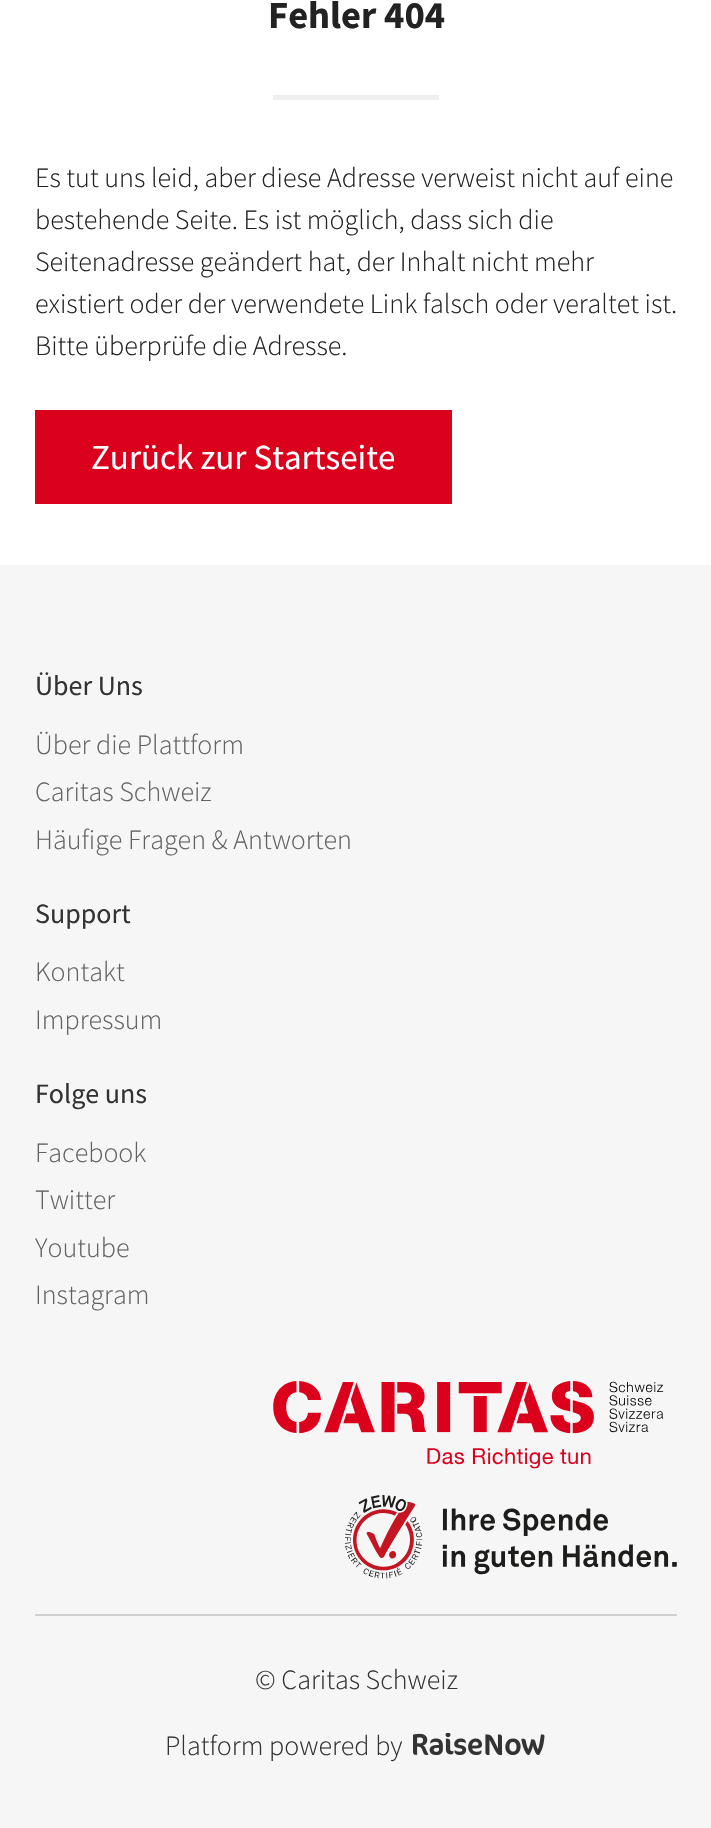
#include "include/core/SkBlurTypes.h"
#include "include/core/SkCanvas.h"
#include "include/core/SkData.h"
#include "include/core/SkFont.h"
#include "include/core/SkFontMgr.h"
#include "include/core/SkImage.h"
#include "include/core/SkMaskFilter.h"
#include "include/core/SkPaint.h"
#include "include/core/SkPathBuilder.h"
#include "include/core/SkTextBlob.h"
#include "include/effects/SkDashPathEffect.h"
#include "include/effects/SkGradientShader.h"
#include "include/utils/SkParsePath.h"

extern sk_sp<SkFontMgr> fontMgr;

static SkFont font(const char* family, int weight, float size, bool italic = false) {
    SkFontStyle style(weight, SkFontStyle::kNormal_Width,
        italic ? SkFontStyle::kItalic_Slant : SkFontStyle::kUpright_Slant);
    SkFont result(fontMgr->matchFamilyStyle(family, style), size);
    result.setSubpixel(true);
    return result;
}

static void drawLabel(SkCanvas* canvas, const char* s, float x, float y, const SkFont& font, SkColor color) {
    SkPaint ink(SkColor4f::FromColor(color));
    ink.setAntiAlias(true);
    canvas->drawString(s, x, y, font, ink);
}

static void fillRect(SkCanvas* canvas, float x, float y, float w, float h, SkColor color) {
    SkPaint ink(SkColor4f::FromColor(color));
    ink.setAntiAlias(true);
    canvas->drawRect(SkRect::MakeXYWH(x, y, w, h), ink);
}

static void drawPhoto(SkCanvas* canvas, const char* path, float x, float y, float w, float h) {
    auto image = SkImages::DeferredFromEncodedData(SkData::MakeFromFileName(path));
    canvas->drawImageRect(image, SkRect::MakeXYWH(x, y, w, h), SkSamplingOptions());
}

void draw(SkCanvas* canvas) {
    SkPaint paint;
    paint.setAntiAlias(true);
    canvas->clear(0xFFFFFFFF);
    SkFont font1 = font("Source Sans Pro", 700, 38.5f);
    drawLabel(canvas, "Fehler 404", 268, 28, font1, 0xFF222222);
    fillRect(canvas, 273, 95, 166, 5, 0xFFEEEEEE);
    SkFont font2 = font("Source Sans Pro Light", 300, 28);
    drawLabel(canvas, "Es tut uns leid, aber diese Adresse verweist nicht auf eine", 35, 187, font2, 0xFF222222);
    drawLabel(canvas, "bestehende Seite. Es ist möglich, dass sich die", 35, 229, font2, 0xFF222222);
    drawLabel(canvas, "Seitenadresse geändert hat, der Inhalt nicht mehr", 35, 271, font2, 0xFF222222);
    drawLabel(canvas, "existiert oder der verwendete Link falsch oder veraltet ist.", 35, 313, font2, 0xFF222222);
    drawLabel(canvas, "Bitte überprüfe die Adresse.", 35, 355, font2, 0xFF222222);
    fillRect(canvas, 35, 410, 417, 94, 0xFFDB001B);
    SkFont font3 = font("Source Sans Pro", 400, 35);
    drawLabel(canvas, "Zurück zur Startseite", 91, 469, font3, 0xFFFFFFFF);
    fillRect(canvas, 0, 565, 711, 1263, 0xFFF6F6F6);
    SkFont font4 = font("Source Sans Pro", 400, 28);
    drawLabel(canvas, "Über Uns", 35, 695, font4, 0xFF333333);
    drawLabel(canvas, "Über die Plattform", 35, 754, font2, 0xFF626262);
    drawLabel(canvas, "Caritas Schweiz", 35, 801, font2, 0xFF626262);
    drawLabel(canvas, "Häufige Fragen & Antworten", 35, 849, font2, 0xFF626262);
    drawLabel(canvas, "Support", 35, 923, font4, 0xFF333333);
    drawLabel(canvas, "Kontakt", 35, 981, font2, 0xFF626262);
    drawLabel(canvas, "Impressum", 35, 1029, font2, 0xFF626262);
    drawLabel(canvas, "Folge uns", 35, 1103, font4, 0xFF333333);
    drawLabel(canvas, "Facebook", 35, 1162, font2, 0xFF626262);
    drawLabel(canvas, "Twitter", 35, 1209, font2, 0xFF626262);
    drawLabel(canvas, "Youtube", 35, 1257, font2, 0xFF626262);
    drawLabel(canvas, "Instagram", 35, 1304, font2, 0xFF626262);
    drawPhoto(canvas, "assets/img1.png", 273, 1381, 391, 88);
    drawPhoto(canvas, "assets/img2.png", 345, 1495, 332, 84);
    fillRect(canvas, 35, 1614, 642, 2, 0xFFCFCFCF);
    drawLabel(canvas, "© Caritas Schweiz", 255, 1689, font2, 0xFF333333);
    drawLabel(canvas, "Platform powered by", 165, 1755, font2, 0xFF333333);
    drawPhoto(canvas, "assets/img3.png", 413, 1733, 132, 22);
}
